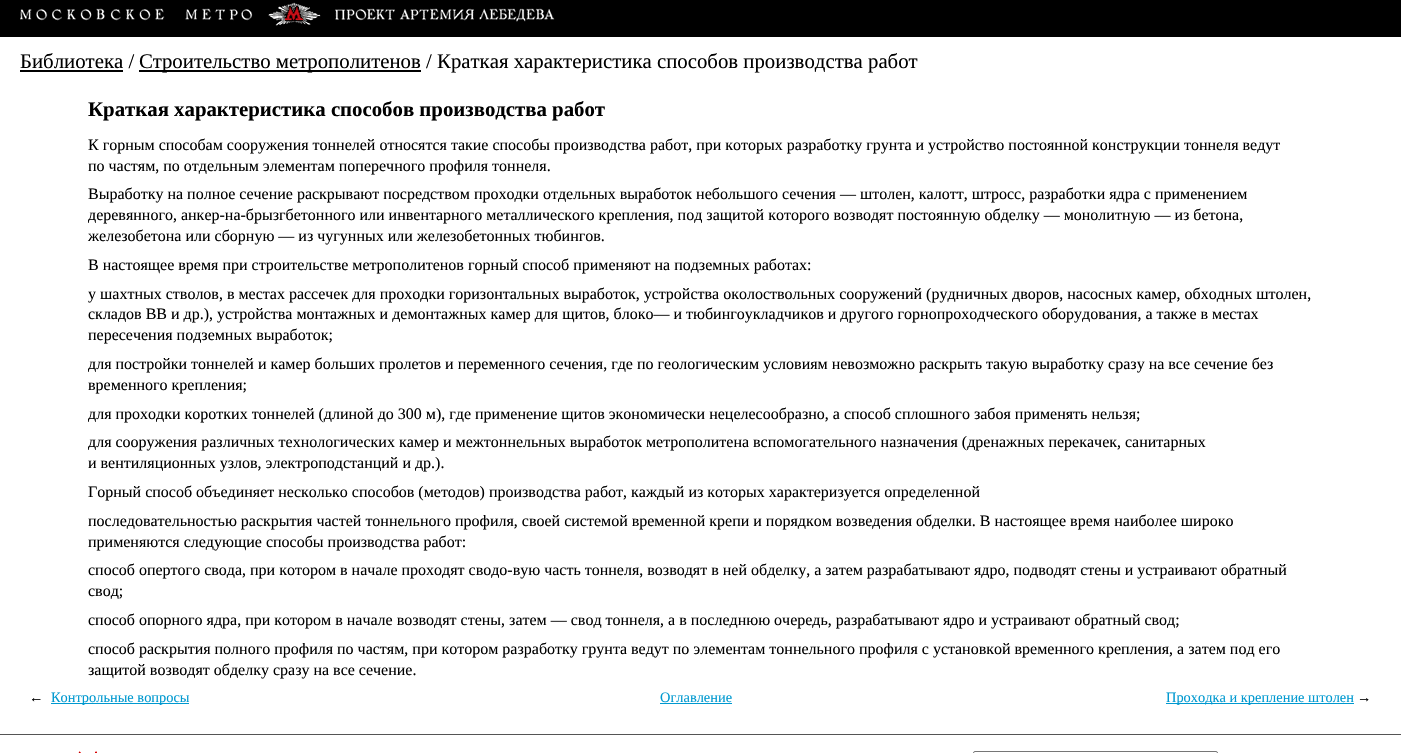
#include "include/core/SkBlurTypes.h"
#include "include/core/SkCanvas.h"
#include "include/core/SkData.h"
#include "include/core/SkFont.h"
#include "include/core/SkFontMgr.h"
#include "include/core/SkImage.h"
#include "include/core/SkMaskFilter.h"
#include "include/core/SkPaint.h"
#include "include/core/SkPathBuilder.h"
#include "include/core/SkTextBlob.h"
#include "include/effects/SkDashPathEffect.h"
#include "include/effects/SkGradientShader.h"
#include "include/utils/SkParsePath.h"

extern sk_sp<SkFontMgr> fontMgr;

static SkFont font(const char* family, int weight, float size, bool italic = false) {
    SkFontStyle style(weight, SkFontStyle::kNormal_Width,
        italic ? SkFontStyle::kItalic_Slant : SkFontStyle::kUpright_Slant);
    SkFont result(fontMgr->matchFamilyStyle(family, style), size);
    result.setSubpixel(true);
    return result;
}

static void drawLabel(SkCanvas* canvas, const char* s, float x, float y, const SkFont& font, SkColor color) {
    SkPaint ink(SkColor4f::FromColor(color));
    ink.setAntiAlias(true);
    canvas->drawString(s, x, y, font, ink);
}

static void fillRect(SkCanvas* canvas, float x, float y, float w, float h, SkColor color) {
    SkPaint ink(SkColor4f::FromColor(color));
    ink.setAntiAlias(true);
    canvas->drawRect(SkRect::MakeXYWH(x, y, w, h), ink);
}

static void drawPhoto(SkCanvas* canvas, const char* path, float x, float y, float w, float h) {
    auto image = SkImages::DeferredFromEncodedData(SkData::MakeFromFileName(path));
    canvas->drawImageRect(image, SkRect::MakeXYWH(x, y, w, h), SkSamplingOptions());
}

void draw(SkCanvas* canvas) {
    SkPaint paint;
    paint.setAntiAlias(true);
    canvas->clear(0xFFFFFFFF);
    fillRect(canvas, 0, 0, 1401, 37, 0xFF000000);
    drawPhoto(canvas, "assets/img1.png", 20, 2, 535, 24);
    SkFont font1 = font("Liberation Serif", 400, 20.8f);
    drawLabel(canvas, "Библиотека /", 20, 68, font1, 0xFF000000);
    fillRect(canvas, 20, 70, 103, 2, 0xFF000000);
    fillRect(canvas, 139, 70, 282, 2, 0xFF000000);
    drawLabel(canvas, "Строительство метрополитенов / Краткая характеристика способов производства работ", 139, 68, font1, 0xFF000000);
    SkFont font2 = font("Liberation Serif", 700, 20.8f);
    drawLabel(canvas, "Краткая характеристика способов производства работ", 88, 116, font2, 0xFF000000);
    SkFont font3 = font("Liberation Serif", 400, 16);
    drawLabel(canvas, "К горным способам сооружения тоннелей относятся такие способы производства работ, при которых разработку грунта и устройство постоянной конструкции тоннеля ведут", 88, 150, font3, 0xFF000000);
    drawLabel(canvas, "по частям, по отдельным элементам поперечного профиля тоннеля.", 88, 171, font3, 0xFF000000);
    drawLabel(canvas, "Выработку на полное сечение раскрывают посредством проходки отдельных выработок небольшого сечения — штолен, калотт, штросс, разработки ядра с применением", 88, 199, font3, 0xFF000000);
    drawLabel(canvas, "деревянного, анкер-на-брызгбетонного или инвентарного металлического крепления, под защитой которого возводят постоянную обделку — монолитную — из бетона,", 88, 220, font3, 0xFF000000);
    drawLabel(canvas, "железобетона или сборную — из чугунных или железобетонных тюбингов.", 88, 241, font3, 0xFF000000);
    drawLabel(canvas, "В настоящее время при строительстве метрополитенов горный способ применяют на подземных работах:", 88, 270, font3, 0xFF000000);
    drawLabel(canvas, "у шахтных стволов, в местах рассечек для проходки горизонтальных выработок, устройства околоствольных сооружений (рудничных дворов, насосных камер, обходных штолен,", 88, 299, font3, 0xFF000000);
    drawLabel(canvas, "складов ВВ и др.), устройства монтажных и демонтажных камер для щитов, блоко— и тюбингоукладчиков и другого горнопроходческого оборудования, а также в местах", 88, 319, font3, 0xFF000000);
    drawLabel(canvas, "пересечения подземных выработок;", 88, 340, font3, 0xFF000000);
    drawLabel(canvas, "для постройки тоннелей и камер больших пролетов и переменного сечения, где по геологическим условиям невозможно раскрыть такую выработку сразу на все сечение без", 88, 369, font3, 0xFF000000);
    drawLabel(canvas, "временного крепления;", 88, 390, font3, 0xFF000000);
    drawLabel(canvas, "для проходки коротких тоннелей (длиной до 300 м), где применение щитов экономически нецелесообразно, а способ сплошного забоя применять нельзя;", 88, 419, font3, 0xFF000000);
    drawLabel(canvas, "для сооружения различных технологических камер и межтоннельных выработок метрополитена вспомогательного назначения (дренажных перекачек, санитарных", 88, 447, font3, 0xFF000000);
    drawLabel(canvas, "и вентиляционных узлов, электроподстанций и др.).", 88, 468, font3, 0xFF000000);
    drawLabel(canvas, "Горный способ объединяет несколько способов (методов) производства работ, каждый из которых характеризуется определенной", 88, 497, font3, 0xFF000000);
    drawLabel(canvas, "последовательностью раскрытия частей тоннельного профиля, своей системой временной крепи и порядком возведения обделки. В настоящее время наиболее широко", 88, 526, font3, 0xFF000000);
    drawLabel(canvas, "применяются следующие способы производства работ:", 88, 547, font3, 0xFF000000);
    drawLabel(canvas, "способ опертого свода, при котором в начале проходят сводо-вую часть тоннеля, возводят в ней обделку, а затем разрабатывают ядро, подводят стены и устраивают обратный", 88, 575, font3, 0xFF000000);
    drawLabel(canvas, "свод;", 88, 596, font3, 0xFF000000);
    drawLabel(canvas, "способ опорного ядра, при котором в начале возводят стены, затем — свод тоннеля, а в последнюю очередь, разрабатывают ядро и устраивают обратный свод;", 88, 625, font3, 0xFF000000);
    drawLabel(canvas, "способ раскрытия полного профиля по частям, при котором разработку грунта ведут по элементам тоннельного профиля с установкой временного крепления, а затем под его", 88, 654, font3, 0xFF000000);
    drawLabel(canvas, "защитой возводят обделку сразу на все сечение.", 88, 675, font3, 0xFF000000);
    SkFont font4 = font("Liberation Serif", 400, 14.4f);
    drawLabel(canvas, "←", 29, 702, font4, 0xFF000000);
    fillRect(canvas, 51, 703, 138, 1, 0xFF0099D0);
    drawLabel(canvas, "Контрольные вопросы", 51, 702, font4, 0xFF0099D0);
    drawLabel(canvas, "Оглавление", 660, 702, font4, 0xFF0099D0);
    fillRect(canvas, 660, 703, 72, 1, 0xFF0099D0);
    fillRect(canvas, 1166, 703, 188, 1, 0xFF0099D0);
    drawLabel(canvas, "Проходка и крепление штолен", 1166, 702, font4, 0xFF0099D0);
    drawLabel(canvas, "→", 1357, 702, font4, 0xFF000000);
    fillRect(canvas, 0, 734, 1401, 1, 0xFF555555);
    drawPhoto(canvas, "assets/img2.png", 78, 751, 19, 2);
    paint.setStroke(true);
    paint.setStrokeWidth(1);
    paint.setColor(0xFF767676);
    canvas->drawRoundRect(SkRect::MakeXYWH(973.5f, 751.5f, 244, 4), 1.5f, 1.5f, paint);
}
